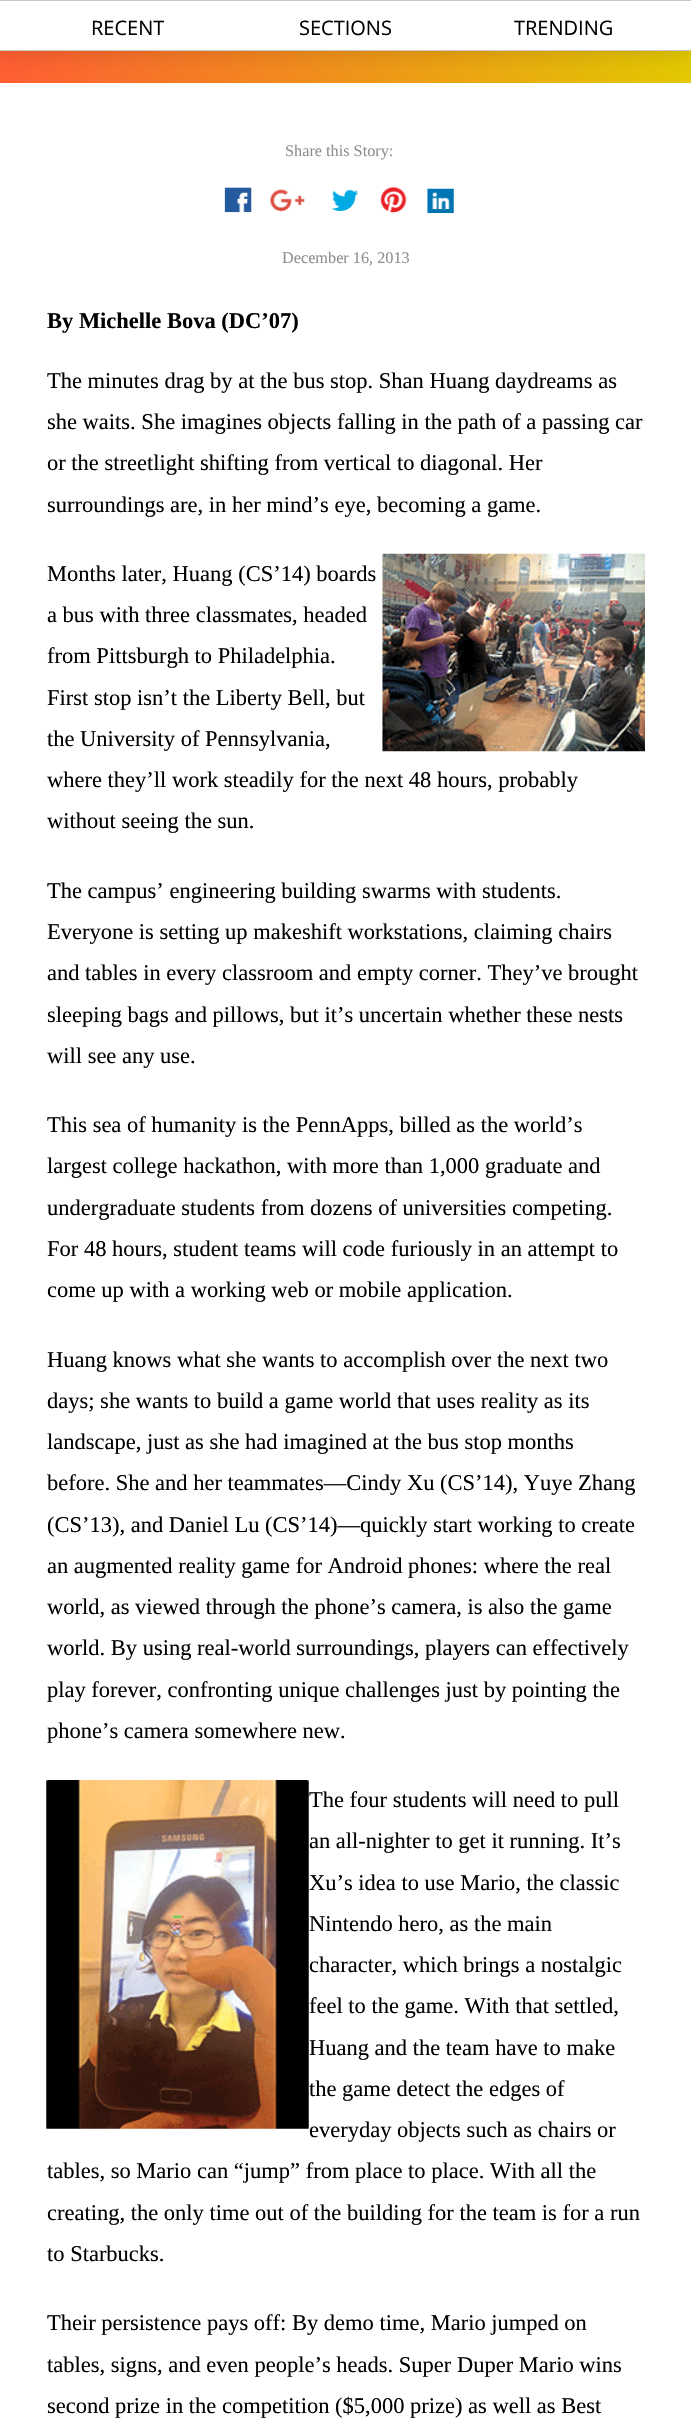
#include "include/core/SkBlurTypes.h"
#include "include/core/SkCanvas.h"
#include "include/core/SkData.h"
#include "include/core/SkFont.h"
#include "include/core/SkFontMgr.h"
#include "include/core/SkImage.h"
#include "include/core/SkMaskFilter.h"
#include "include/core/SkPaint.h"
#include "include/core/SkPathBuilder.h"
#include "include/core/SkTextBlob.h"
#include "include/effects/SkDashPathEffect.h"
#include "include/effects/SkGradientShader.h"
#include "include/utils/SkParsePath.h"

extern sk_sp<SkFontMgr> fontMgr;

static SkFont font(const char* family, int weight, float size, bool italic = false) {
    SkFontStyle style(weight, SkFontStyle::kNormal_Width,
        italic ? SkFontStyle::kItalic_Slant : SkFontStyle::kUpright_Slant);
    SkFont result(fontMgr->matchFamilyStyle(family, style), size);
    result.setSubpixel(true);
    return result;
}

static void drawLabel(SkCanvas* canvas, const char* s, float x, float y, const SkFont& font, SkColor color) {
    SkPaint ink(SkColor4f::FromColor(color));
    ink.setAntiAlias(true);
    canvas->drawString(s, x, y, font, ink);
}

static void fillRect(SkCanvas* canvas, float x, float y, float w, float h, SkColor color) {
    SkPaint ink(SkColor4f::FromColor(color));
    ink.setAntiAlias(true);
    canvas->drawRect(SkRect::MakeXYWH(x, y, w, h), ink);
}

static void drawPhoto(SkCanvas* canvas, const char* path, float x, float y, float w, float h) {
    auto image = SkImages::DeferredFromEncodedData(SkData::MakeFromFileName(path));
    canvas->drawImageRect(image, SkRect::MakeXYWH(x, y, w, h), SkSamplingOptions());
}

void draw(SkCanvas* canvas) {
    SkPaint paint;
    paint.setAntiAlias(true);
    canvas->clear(0xFFFFFFFF);
    {
        const SkColor colors[] = {0xFFFF5B34, 0xFFE2CC00};
        const float stops[] = {0, 1};
        const SkPoint ends[] = {{-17, -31}, {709, -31}};
        paint.setShader(SkGradientShader::MakeLinear(ends, colors, stops, 2, SkTileMode::kClamp));
        paint.setAlpha(255);
    }
    canvas->drawRect(SkRect::MakeXYWH(0, 51, 691, 32), paint);
    paint.setShader(nullptr);
    paint.setColor(0x21000000);
    paint.setMaskFilter(SkMaskFilter::MakeBlur(kNormal_SkBlurStyle, 10.5f));
    canvas->drawRect(SkRect::MakeXYWH(0, 3, 691, 51), paint);
    paint.setMaskFilter(nullptr);
    fillRect(canvas, 0, 0, 691, 1, 0xFFC9C8C7);
    fillRect(canvas, 0, 50, 691, 1, 0xFFC9C8C7);
    fillRect(canvas, 0, 1, 691, 49, 0xFFFFFFFF);
    SkFont font1 = font("Open Sans", 400, 20);
    drawLabel(canvas, "RECENT", 91, 35, font1, 0xFF000000);
    drawLabel(canvas, "SECTIONS", 299, 35, font1, 0xFF000000);
    drawLabel(canvas, "TRENDING", 514, 35, font1, 0xFF000000);
    SkFont font2 = font("Liberation Serif", 400, 16.25f);
    drawLabel(canvas, "Share this Story:", 285, 156, font2, 0xFF8E8F90);
    drawPhoto(canvas, "assets/img1.png", 224, 187, 28, 26);
    drawPhoto(canvas, "assets/img2.png", 270, 189, 35, 23);
    drawPhoto(canvas, "assets/img3.png", 331, 189, 28, 22);
    drawPhoto(canvas, "assets/img4.png", 380, 186, 27, 27);
    drawPhoto(canvas, "assets/img5.png", 427, 188, 27, 26);
    drawLabel(canvas, "December 16, 2013", 282, 263, font2, 0xFF8E8F90);
    SkFont font3 = font("Liberation Serif", 700, 22.5f);
    drawLabel(canvas, "By Michelle Bova (DC’07)", 47, 328, font3, 0xFF000000);
    SkFont font4 = font("Liberation Serif", 400, 22.5f);
    drawLabel(canvas, "The minutes drag by at the bus stop. Shan Huang daydreams as", 47, 388, font4, 0xFF000000);
    drawLabel(canvas, "she waits. She imagines objects falling in the path of a passing car", 47, 429, font4, 0xFF000000);
    drawLabel(canvas, "or the streetlight shifting from vertical to diagonal. Her", 47, 470, font4, 0xFF000000);
    drawLabel(canvas, "surroundings are, in her mind’s eye, becoming a game.", 47, 512, font4, 0xFF000000);
    drawLabel(canvas, "Months later, Huang (CS’14) boards", 47, 581, font4, 0xFF000000);
    drawPhoto(canvas, "assets/img6.png", 382, 553, 263, 199);
    drawLabel(canvas, "a bus with three classmates, headed", 47, 622, font4, 0xFF000000);
    drawLabel(canvas, "from Pittsburgh to Philadelphia.", 47, 663, font4, 0xFF000000);
    drawLabel(canvas, "First stop isn’t the Liberty Bell, but", 47, 705, font4, 0xFF000000);
    drawLabel(canvas, "the University of Pennsylvania,", 47, 746, font4, 0xFF000000);
    drawLabel(canvas, "where they’ll work steadily for the next 48 hours, probably", 47, 787, font4, 0xFF000000);
    drawLabel(canvas, "without seeing the sun.", 47, 828, font4, 0xFF000000);
    drawLabel(canvas, "The campus’ engineering building swarms with students.", 47, 898, font4, 0xFF000000);
    drawLabel(canvas, "Everyone is setting up makeshift workstations, claiming chairs", 47, 939, font4, 0xFF000000);
    drawLabel(canvas, "and tables in every classroom and empty corner. They’ve brought", 47, 980, font4, 0xFF000000);
    drawLabel(canvas, "sleeping bags and pillows, but it’s uncertain whether these nests", 47, 1022, font4, 0xFF000000);
    drawLabel(canvas, "will see any use.", 47, 1063, font4, 0xFF000000);
    drawLabel(canvas, "This sea of humanity is the PennApps, billed as the world’s", 47, 1132, font4, 0xFF000000);
    drawLabel(canvas, "largest college hackathon, with more than 1,000 graduate and", 47, 1173, font4, 0xFF000000);
    drawLabel(canvas, "undergraduate students from dozens of universities competing.", 47, 1215, font4, 0xFF000000);
    drawLabel(canvas, "For 48 hours, student teams will code furiously in an attempt to", 47, 1256, font4, 0xFF000000);
    drawLabel(canvas, "come up with a working web or mobile application.", 47, 1297, font4, 0xFF000000);
    drawLabel(canvas, "Huang knows what she wants to accomplish over the next two", 47, 1367, font4, 0xFF000000);
    drawLabel(canvas, "days; she wants to build a game world that uses reality as its", 47, 1408, font4, 0xFF000000);
    drawLabel(canvas, "landscape, just as she had imagined at the bus stop months", 47, 1449, font4, 0xFF000000);
    drawLabel(canvas, "before. She and her teammates—Cindy Xu (CS’14), Yuye Zhang", 47, 1490, font4, 0xFF000000);
    drawLabel(canvas, "(CS’13), and Daniel Lu (CS’14)—quickly start working to create", 47, 1532, font4, 0xFF000000);
    drawLabel(canvas, "an augmented reality game for Android phones: where the real", 47, 1573, font4, 0xFF000000);
    drawLabel(canvas, "world, as viewed through the phone’s camera, is also the game", 47, 1614, font4, 0xFF000000);
    drawLabel(canvas, "world. By using real-world surroundings, players can effectively", 47, 1655, font4, 0xFF000000);
    drawLabel(canvas, "play forever, confronting unique challenges just by pointing the", 47, 1697, font4, 0xFF000000);
    drawLabel(canvas, "phone’s camera somewhere new.", 47, 1738, font4, 0xFF000000);
    drawPhoto(canvas, "assets/img7.png", 46, 1780, 263, 349);
    drawLabel(canvas, "The four students will need to pull", 309, 1807, font4, 0xFF000000);
    drawLabel(canvas, "an all-nighter to get it running. It’s", 309, 1848, font4, 0xFF000000);
    drawLabel(canvas, "Xu’s idea to use Mario, the classic", 309, 1890, font4, 0xFF000000);
    drawLabel(canvas, "Nintendo hero, as the main", 309, 1931, font4, 0xFF000000);
    drawLabel(canvas, "character, which brings a nostalgic", 309, 1972, font4, 0xFF000000);
    drawLabel(canvas, "feel to the game. With that settled,", 309, 2013, font4, 0xFF000000);
    drawLabel(canvas, "Huang and the team have to make", 309, 2055, font4, 0xFF000000);
    drawLabel(canvas, "the game detect the edges of", 309, 2096, font4, 0xFF000000);
    drawLabel(canvas, "everyday objects such as chairs or", 309, 2137, font4, 0xFF000000);
    drawLabel(canvas, "tables, so Mario can “jump” from place to place. With all the", 47, 2178, font4, 0xFF000000);
    drawLabel(canvas, "creating, the only time out of the building for the team is for a run", 47, 2220, font4, 0xFF000000);
    drawLabel(canvas, "to Starbucks.", 47, 2261, font4, 0xFF000000);
    drawLabel(canvas, "Their persistence pays off: By demo time, Mario jumped on", 47, 2330, font4, 0xFF000000);
    drawLabel(canvas, "tables, signs, and even people’s heads. Super Duper Mario wins", 47, 2372, font4, 0xFF000000);
    drawLabel(canvas, "second prize in the competition ($5,000 prize) as well as Best", 47, 2413, font4, 0xFF000000);
}
